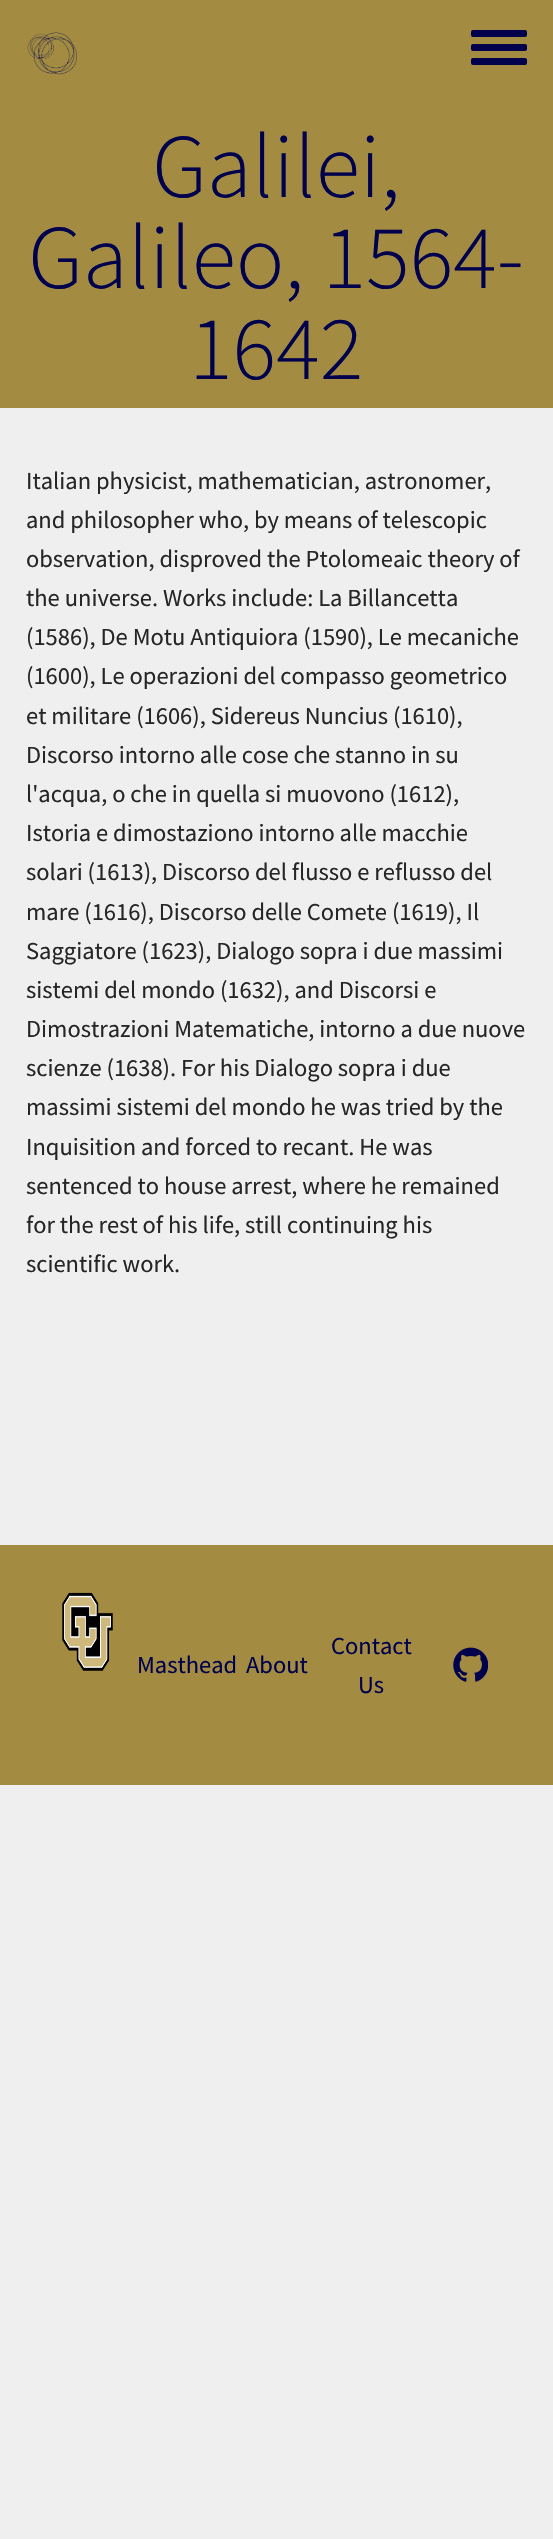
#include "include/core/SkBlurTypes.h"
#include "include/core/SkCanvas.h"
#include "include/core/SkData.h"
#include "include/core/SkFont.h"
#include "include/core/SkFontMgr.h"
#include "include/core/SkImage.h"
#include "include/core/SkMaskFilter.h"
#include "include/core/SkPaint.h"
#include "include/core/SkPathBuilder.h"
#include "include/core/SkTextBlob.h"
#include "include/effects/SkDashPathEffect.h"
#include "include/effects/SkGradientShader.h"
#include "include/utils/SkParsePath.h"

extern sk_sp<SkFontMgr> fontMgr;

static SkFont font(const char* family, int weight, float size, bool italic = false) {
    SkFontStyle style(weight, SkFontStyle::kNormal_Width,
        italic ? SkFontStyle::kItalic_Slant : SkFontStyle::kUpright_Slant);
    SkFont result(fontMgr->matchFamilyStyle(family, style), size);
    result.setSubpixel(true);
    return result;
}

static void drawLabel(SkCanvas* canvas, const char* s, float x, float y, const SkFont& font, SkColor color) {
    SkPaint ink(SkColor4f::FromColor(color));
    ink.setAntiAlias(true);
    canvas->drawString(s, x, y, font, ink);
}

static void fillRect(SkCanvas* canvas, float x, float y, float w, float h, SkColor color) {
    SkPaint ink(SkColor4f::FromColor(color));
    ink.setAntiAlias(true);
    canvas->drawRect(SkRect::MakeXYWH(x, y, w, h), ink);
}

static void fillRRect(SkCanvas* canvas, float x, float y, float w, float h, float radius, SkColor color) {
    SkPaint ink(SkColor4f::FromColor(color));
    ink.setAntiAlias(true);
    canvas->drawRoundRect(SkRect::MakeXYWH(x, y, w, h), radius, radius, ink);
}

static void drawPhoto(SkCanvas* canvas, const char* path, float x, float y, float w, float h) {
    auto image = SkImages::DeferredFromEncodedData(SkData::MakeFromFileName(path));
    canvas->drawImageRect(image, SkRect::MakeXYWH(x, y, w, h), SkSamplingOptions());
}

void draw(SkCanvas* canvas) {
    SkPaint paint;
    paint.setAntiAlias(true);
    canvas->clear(0xFFEFEFEF);
    fillRect(canvas, 0, 0, 553, 408, 0xFFA38C42);
    drawPhoto(canvas, "assets/img1.png", 27, 32, 50, 43);
    fillRRect(canvas, 471, 44, 56, 7, 2, 0xFF00004D);
    fillRRect(canvas, 471, 30, 56, 7, 2, 0xFF00004D);
    fillRRect(canvas, 471, 58, 56, 7, 2, 0xFF00004D);
    SkFont font1 = font("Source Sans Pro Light", 300, 91);
    drawLabel(canvas, "Galilei,", 152, 197, font1, 0xFF00004D);
    drawLabel(canvas, "Galileo, 1564-", 28, 288, font1, 0xFF00004D);
    drawLabel(canvas, "1642", 189, 379, font1, 0xFF00004D);
    SkFont font2 = font("Source Sans Pro", 400, 24.5f);
    drawLabel(canvas, "Italian physicist, mathematician, astronomer,", 26, 489, font2, 0xFF262626);
    drawLabel(canvas, "and philosopher who, by means of telescopic", 26, 528, font2, 0xFF262626);
    drawLabel(canvas, "observation, disproved the Ptolomeaic theory of", 26, 567, font2, 0xFF262626);
    drawLabel(canvas, "the universe. Works include: La Billancetta", 26, 606, font2, 0xFF262626);
    drawLabel(canvas, "(1586), De Motu Antiquiora (1590), Le mecaniche", 26, 645, font2, 0xFF262626);
    drawLabel(canvas, "(1600), Le operazioni del compasso geometrico", 26, 684, font2, 0xFF262626);
    drawLabel(canvas, "et militare (1606), Sidereus Nuncius (1610),", 26, 724, font2, 0xFF262626);
    drawLabel(canvas, "Discorso intorno alle cose che stanno in su", 26, 763, font2, 0xFF262626);
    drawLabel(canvas, "l'acqua, o che in quella si muovono (1612),", 26, 802, font2, 0xFF262626);
    drawLabel(canvas, "Istoria e dimostaziono intorno alle macchie", 26, 841, font2, 0xFF262626);
    drawLabel(canvas, "solari (1613), Discorso del flusso e reflusso del", 26, 880, font2, 0xFF262626);
    drawLabel(canvas, "mare (1616), Discorso delle Comete (1619), Il", 26, 920, font2, 0xFF262626);
    drawLabel(canvas, "Saggiatore (1623), Dialogo sopra i due massimi", 26, 959, font2, 0xFF262626);
    drawLabel(canvas, "sistemi del mondo (1632), and Discorsi e", 26, 998, font2, 0xFF262626);
    drawLabel(canvas, "Dimostrazioni Matematiche, intorno a due nuove", 26, 1037, font2, 0xFF262626);
    drawLabel(canvas, "scienze (1638). For his Dialogo sopra i due", 26, 1076, font2, 0xFF262626);
    drawLabel(canvas, "massimi sistemi del mondo he was tried by the", 26, 1115, font2, 0xFF262626);
    drawLabel(canvas, "Inquisition and forced to recant. He was", 26, 1155, font2, 0xFF262626);
    drawLabel(canvas, "sentenced to house arrest, where he remained", 26, 1194, font2, 0xFF262626);
    drawLabel(canvas, "for the rest of his life, still continuing his", 26, 1233, font2, 0xFF262626);
    drawLabel(canvas, "scientific work.", 26, 1272, font2, 0xFF262626);
    fillRect(canvas, 0, 1545, 553, 240, 0xFFA38C42);
    drawPhoto(canvas, "assets/img2.png", 62, 1592, 51, 79);
    drawLabel(canvas, "Masthead", 137, 1673, font2, 0xFF00004D);
    drawLabel(canvas, "About", 246, 1673, font2, 0xFF00004D);
    drawLabel(canvas, "Contact", 331, 1654, font2, 0xFF00004D);
    drawLabel(canvas, "Us", 358, 1693, font2, 0xFF00004D);
    drawPhoto(canvas, "assets/img3.png", 453, 1647, 35, 35);
}
